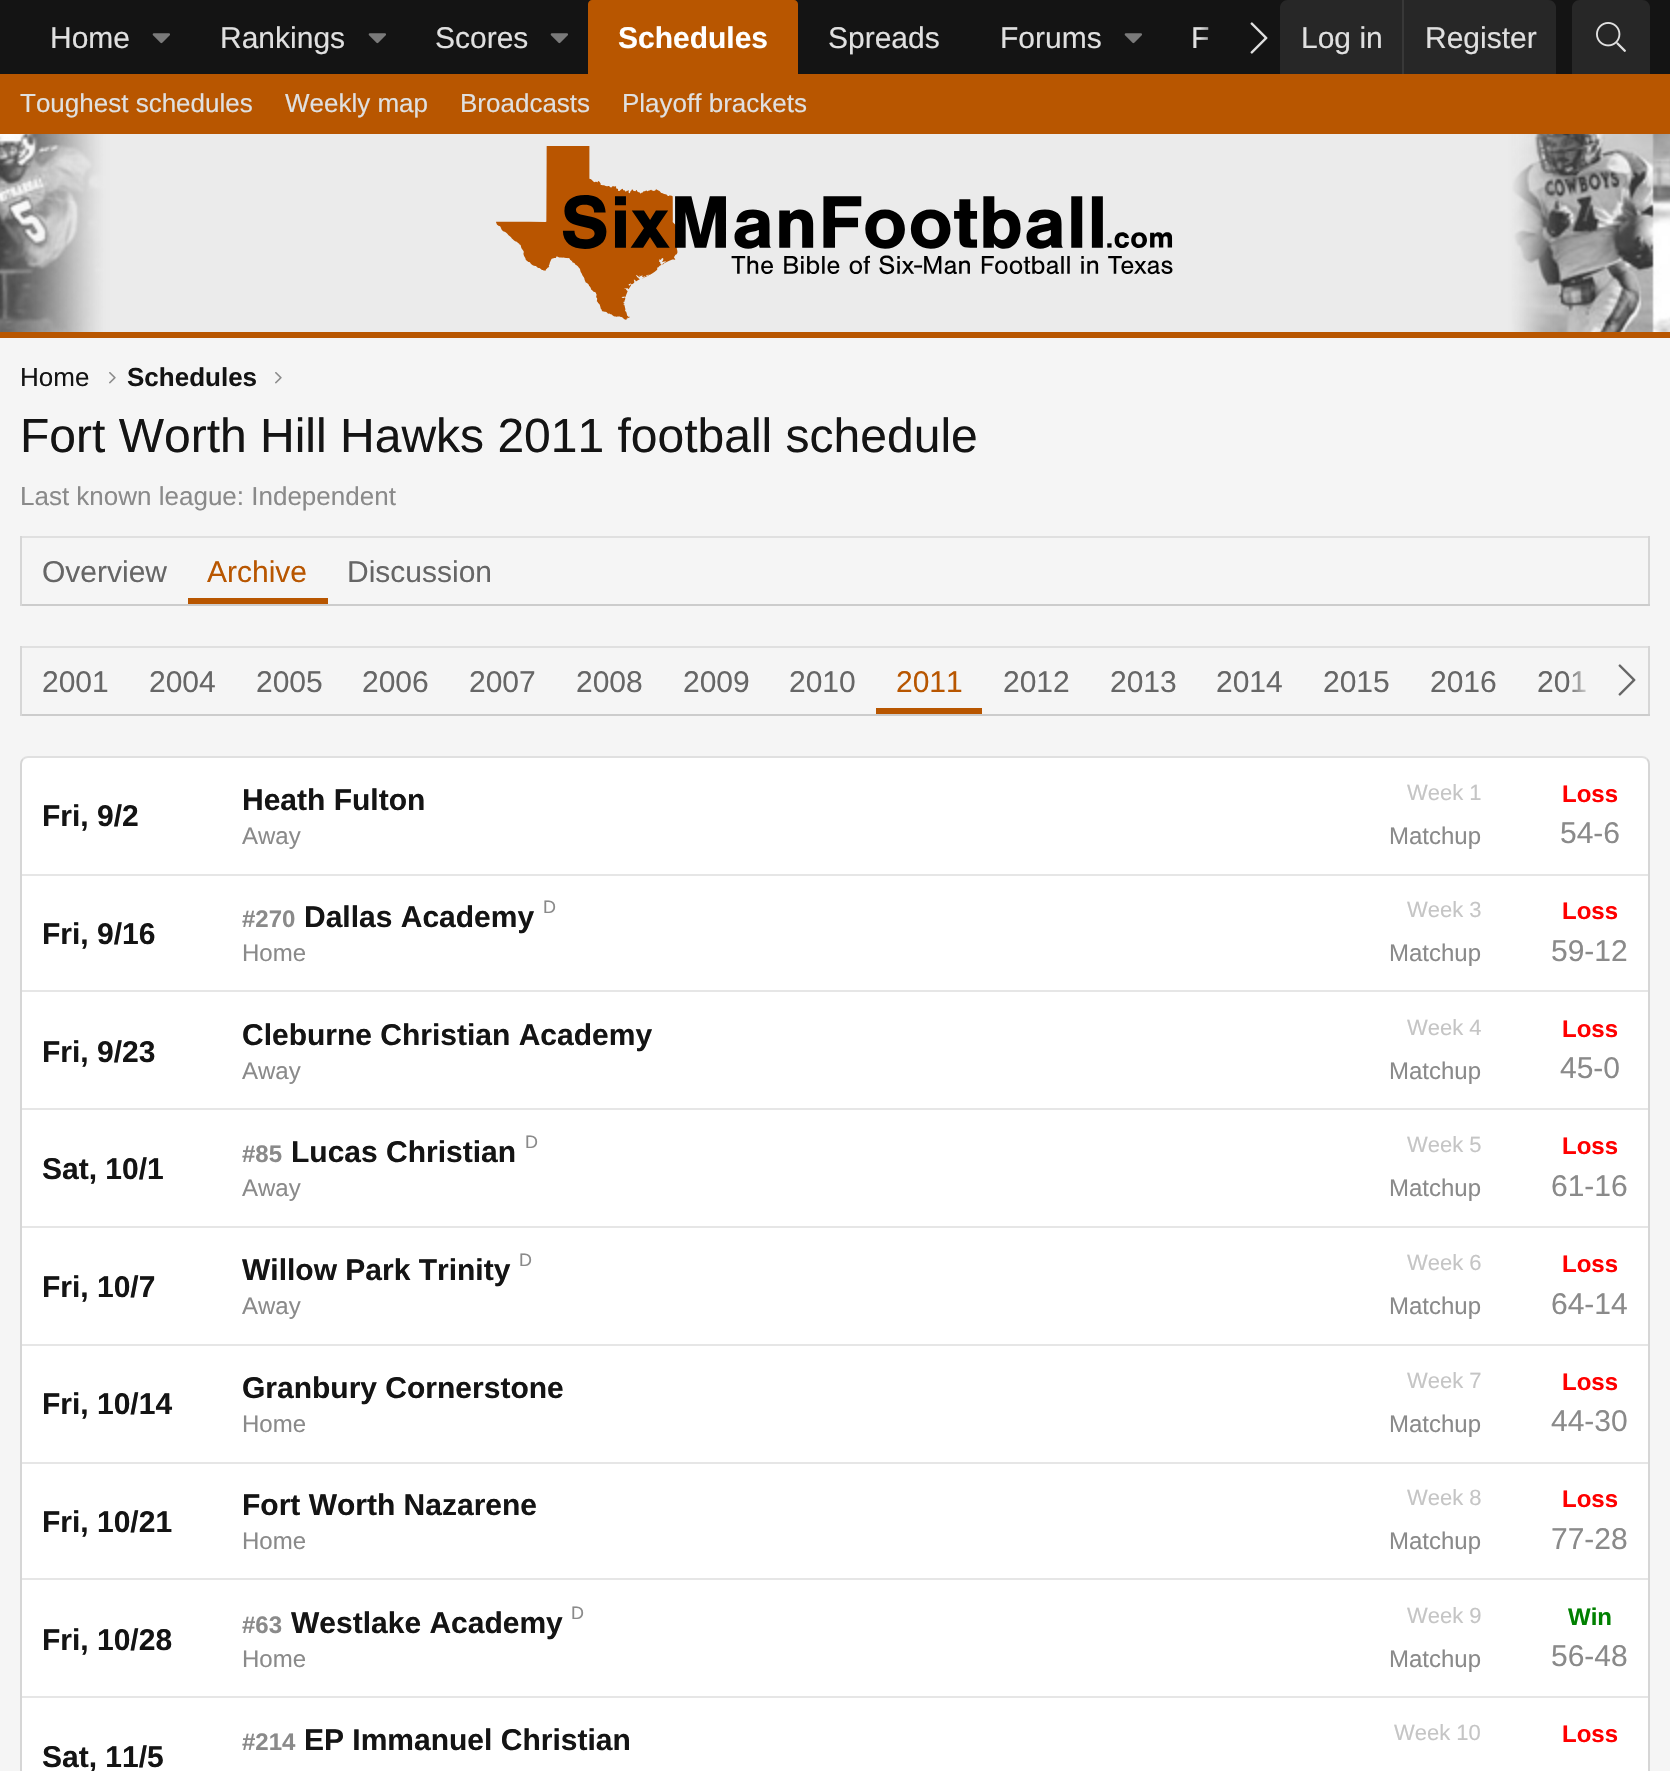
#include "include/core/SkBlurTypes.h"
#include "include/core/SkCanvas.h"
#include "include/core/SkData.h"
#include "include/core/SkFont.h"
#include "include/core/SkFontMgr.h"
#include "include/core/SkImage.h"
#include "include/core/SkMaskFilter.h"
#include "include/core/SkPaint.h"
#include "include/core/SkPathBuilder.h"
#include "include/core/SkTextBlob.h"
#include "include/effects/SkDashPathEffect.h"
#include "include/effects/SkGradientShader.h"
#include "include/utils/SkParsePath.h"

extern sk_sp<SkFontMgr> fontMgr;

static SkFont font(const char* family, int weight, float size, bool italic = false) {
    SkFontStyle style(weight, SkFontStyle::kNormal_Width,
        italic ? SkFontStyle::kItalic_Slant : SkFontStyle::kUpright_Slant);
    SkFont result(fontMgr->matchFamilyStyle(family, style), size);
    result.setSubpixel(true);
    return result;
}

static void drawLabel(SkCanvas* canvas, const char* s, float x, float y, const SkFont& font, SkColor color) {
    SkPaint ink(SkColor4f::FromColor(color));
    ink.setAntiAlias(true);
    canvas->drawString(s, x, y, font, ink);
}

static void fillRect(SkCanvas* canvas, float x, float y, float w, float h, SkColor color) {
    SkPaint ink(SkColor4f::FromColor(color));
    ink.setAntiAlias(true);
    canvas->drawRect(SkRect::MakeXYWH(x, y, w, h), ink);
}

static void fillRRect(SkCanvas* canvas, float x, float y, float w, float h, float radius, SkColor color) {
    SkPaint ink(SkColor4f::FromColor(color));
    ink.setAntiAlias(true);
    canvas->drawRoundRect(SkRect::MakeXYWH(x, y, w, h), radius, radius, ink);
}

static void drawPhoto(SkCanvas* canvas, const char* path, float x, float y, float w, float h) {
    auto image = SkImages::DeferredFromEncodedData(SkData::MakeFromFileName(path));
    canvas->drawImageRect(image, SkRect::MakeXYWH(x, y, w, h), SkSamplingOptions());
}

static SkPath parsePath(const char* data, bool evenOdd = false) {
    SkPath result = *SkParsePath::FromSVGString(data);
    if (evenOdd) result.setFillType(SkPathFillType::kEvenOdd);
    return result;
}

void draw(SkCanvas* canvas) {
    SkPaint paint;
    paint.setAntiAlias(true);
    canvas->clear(0xFFEBEBEB);
    fillRect(canvas, 0, 0, 1670, 74, 0xFF141414);
    SkFont font1 = font("Liberation Sans", 400, 30);
    drawLabel(canvas, "Home", 50, 48, font1, 0xFFE0E0E0);
    drawPhoto(canvas, "assets/img1.png", 152, 33, 18, 11);
    drawLabel(canvas, "Rankings", 220, 48, font1, 0xFFE0E0E0);
    drawPhoto(canvas, "assets/img1.png", 368, 33, 18, 11);
    drawLabel(canvas, "Scores", 435, 48, font1, 0xFFE0E0E0);
    drawPhoto(canvas, "assets/img1.png", 550, 33, 18, 11);
    paint.setColor(0xFFB85600);
    canvas->drawPath(parsePath("M592 0H794C796 0 798 2 798 4V74H588V4C588 2 590 0 592 0Z"), paint);
    SkFont font2 = font("Liberation Sans", 700, 30);
    drawLabel(canvas, "Schedules", 618, 48, font2, 0xFFFFFFFF);
    drawLabel(canvas, "Spreads", 828, 48, font1, 0xFFE0E0E0);
    drawLabel(canvas, "Forums", 1000, 48, font1, 0xFFE0E0E0);
    drawPhoto(canvas, "assets/img1.png", 1124, 33, 18, 11);
    drawLabel(canvas, "F", 1191, 48, font1, 0xFFE0E0E0);
    {
        const SkColor colors[] = {0x00141414, 0xFF141414};
        const float stops[] = {0, 0.33f};
        const SkPoint ends[] = {{1200, 37}, {1280, 37}};
        paint.setShader(SkGradientShader::MakeLinear(ends, colors, stops, 2, SkTileMode::kClamp));
        paint.setAlpha(255);
    }
    canvas->drawRect(SkRect::MakeXYWH(1201, 27, 8, 13), paint);
    drawPhoto(canvas, "assets/img2.png", 1250, 22, 18, 32);
    paint.setShader(nullptr);
    paint.setColor(0xFF272727);
    canvas->drawPath(parsePath("M1288 0H1548C1552.5 0 1556 3.5 1556 8V74H1280V8C1280 3.5 1283.5 0 1288 0Z"), paint);
    drawLabel(canvas, "Log in", 1301, 48, font1, 0xFFE0E0E0);
    fillRect(canvas, 1402, 0, 2, 74, 0xFF383838);
    drawLabel(canvas, "Register", 1425, 48, font1, 0xFFE0E0E0);
    canvas->drawPath(parsePath("M1580 0H1642C1646.5 0 1650 3.5 1650 8V74H1572V8C1572 3.5 1575.5 0 1580 0Z"), paint);
    drawPhoto(canvas, "assets/img3.png", 1596, 22, 30, 30);
    fillRect(canvas, 0, 74, 1670, 60, 0xFFB85600);
    SkFont font3 = font("Liberation Sans", 400, 26);
    drawLabel(canvas, "Toughest schedules", 20, 112, font3, 0xFFE0E0E0);
    drawLabel(canvas, "Weekly map", 285, 112, font3, 0xFFE0E0E0);
    drawLabel(canvas, "Broadcasts", 460, 112, font3, 0xFFE0E0E0);
    drawLabel(canvas, "Playoff brackets", 622, 112, font3, 0xFFE0E0E0);
    drawPhoto(canvas, "assets/img4.png", 0, 134, 1670, 198);
    drawPhoto(canvas, "assets/img5.png", 496, 146, 677, 174);
    fillRect(canvas, 0, 338, 1670, 1433, 0xFFF5F5F5);
    fillRect(canvas, 0, 332, 1670, 6, 0xFFB85600);
    drawLabel(canvas, "Home", 20, 386, font3, 0xFF141414);
    drawPhoto(canvas, "assets/img6.png", 109, 372, 7, 12);
    SkFont font4 = font("Liberation Sans", 700, 26);
    drawLabel(canvas, "Schedules", 127, 386, font4, 0xFF141414);
    drawPhoto(canvas, "assets/img6.png", 275, 372, 7, 12);
    SkFont font5 = font("Liberation Sans", 400, 48);
    drawLabel(canvas, "Fort Worth Hill Hawks 2011 football schedule", 20, 452, font5, 0xFF141414);
    drawLabel(canvas, "Last known league: Independent", 20, 505, font3, 0xFF8A8A8A);
    fillRect(canvas, 20, 536, 1630, 2, 0xFFE0E0E0);
    fillRect(canvas, 1648, 536, 2, 70, 0xFFD6D6D6);
    fillRect(canvas, 20, 604, 1630, 2, 0xFFCCCCCC);
    fillRect(canvas, 20, 536, 2, 70, 0xFFD6D6D6);
    drawLabel(canvas, "Overview", 42, 582, font1, 0xFF666666);
    fillRect(canvas, 188, 598, 140, 6, 0xFFB85600);
    drawLabel(canvas, "Archive", 207, 582, font1, 0xFFB85600);
    drawLabel(canvas, "Discussion", 347, 582, font1, 0xFF666666);
    fillRect(canvas, 20, 646, 1630, 2, 0xFFE0E0E0);
    fillRect(canvas, 1648, 646, 2, 70, 0xFFD6D6D6);
    fillRect(canvas, 20, 714, 1630, 2, 0xFFCCCCCC);
    fillRect(canvas, 20, 646, 2, 70, 0xFFD6D6D6);
    drawLabel(canvas, "2001", 42, 692, font1, 0xFF666666);
    drawLabel(canvas, "2004", 149, 692, font1, 0xFF666666);
    drawLabel(canvas, "2005", 256, 692, font1, 0xFF666666);
    drawLabel(canvas, "2006", 362, 692, font1, 0xFF666666);
    drawLabel(canvas, "2007", 469, 692, font1, 0xFF666666);
    drawLabel(canvas, "2008", 576, 692, font1, 0xFF666666);
    drawLabel(canvas, "2009", 683, 692, font1, 0xFF666666);
    drawLabel(canvas, "2010", 789, 692, font1, 0xFF666666);
    fillRect(canvas, 876, 708, 106, 6, 0xFFB85600);
    drawLabel(canvas, "2011", 896, 692, font1, 0xFFB85600);
    drawLabel(canvas, "2012", 1003, 692, font1, 0xFF666666);
    drawLabel(canvas, "2013", 1110, 692, font1, 0xFF666666);
    drawLabel(canvas, "2014", 1216, 692, font1, 0xFF666666);
    drawLabel(canvas, "2015", 1323, 692, font1, 0xFF666666);
    drawLabel(canvas, "2016", 1430, 692, font1, 0xFF666666);
    drawLabel(canvas, "201", 1537, 692, font1, 0xFF666666);
    {
        const SkColor colors[] = {0x00F5F5F5, 0xFFF5F5F5};
        const float stops[] = {0, 0.33f};
        const SkPoint ends[] = {{1568, 681}, {1648, 681}};
        paint.setShader(SkGradientShader::MakeLinear(ends, colors, stops, 2, SkTileMode::kClamp));
        paint.setAlpha(255);
    }
    canvas->drawRect(SkRect::MakeXYWH(1572, 671, 14, 21), paint);
    drawPhoto(canvas, "assets/img7.png", 1618, 664, 18, 32);
    fillRRect(canvas, 20, 756, 1630, 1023, 8, 0xFFFFFFFF);
    paint.setStroke(true);
    paint.setStrokeWidth(2);
    paint.setShader(nullptr);
    paint.setColor(0xFFE0E0E0);
    canvas->drawPath(parsePath("M23 759C24.5 757.5 26 757 28 757H1642C1644 757 1645.5 757.5 1647 759"), paint);
    paint.setColor(0xFFD6D6D6);
    canvas->drawPath(parsePath("M1647 759C1648.5 760.5 1649 762 1649 764V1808C1649 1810 1648.5 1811.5 1647 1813"), paint);
    canvas->drawPath(parsePath("M23 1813C21.5 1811.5 21 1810 21 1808V764C21 762 21.5 760.5 23 759"), paint);
    fillRect(canvas, 22, 874, 1626, 2, 0xFFE6E6E6);
    drawLabel(canvas, "Fri, 9/2", 42, 826, font2, 0xFF141414);
    drawLabel(canvas, "Heath Fulton", 242, 810, font2, 0xFF141414);
    SkFont font6 = font("Liberation Sans", 400, 22);
    drawLabel(canvas, "Week 1", 1407, 800, font6, 0xFFC5C5C5);
    SkFont font7 = font("Liberation Sans", 400, 24);
    drawLabel(canvas, "Away", 242, 844, font7, 0xFF8A8A8A);
    drawLabel(canvas, "Matchup", 1389, 844, font7, 0xFF8A8A8A);
    SkFont font8 = font("Liberation Sans", 700, 24);
    drawLabel(canvas, "Loss", 1562, 802, font8, 0xFFFF0000);
    drawLabel(canvas, "54-6", 1560, 843, font1, 0xFF8A8A8A);
    fillRect(canvas, 22, 990, 1626, 2, 0xFFE6E6E6);
    drawLabel(canvas, "Fri, 9/16", 42, 944, font2, 0xFF141414);
    drawLabel(canvas, "#270", 242, 927, font8, 0xFF8A8A8A);
    drawLabel(canvas, "Dallas Academy", 304, 927, font2, 0xFF141414);
    SkFont font9 = font("Liberation Sans", 400, 18);
    drawLabel(canvas, "D", 543, 913, font9, 0xFF8A8A8A);
    drawLabel(canvas, "Week 3", 1407, 917, font6, 0xFFC5C5C5);
    drawLabel(canvas, "Home", 242, 961, font7, 0xFF8A8A8A);
    drawLabel(canvas, "Matchup", 1389, 961, font7, 0xFF8A8A8A);
    drawLabel(canvas, "Loss", 1562, 919, font8, 0xFFFF0000);
    drawLabel(canvas, "59-12", 1551, 961, font1, 0xFF8A8A8A);
    fillRect(canvas, 22, 1108, 1626, 2, 0xFFE6E6E6);
    drawLabel(canvas, "Fri, 9/23", 42, 1062, font2, 0xFF141414);
    drawLabel(canvas, "Cleburne Christian Academy", 242, 1045, font2, 0xFF141414);
    drawLabel(canvas, "Week 4", 1407, 1035, font6, 0xFFC5C5C5);
    drawLabel(canvas, "Away", 242, 1079, font7, 0xFF8A8A8A);
    drawLabel(canvas, "Matchup", 1389, 1079, font7, 0xFF8A8A8A);
    drawLabel(canvas, "Loss", 1562, 1037, font8, 0xFFFF0000);
    drawLabel(canvas, "45-0", 1560, 1078, font1, 0xFF8A8A8A);
    fillRect(canvas, 22, 1226, 1626, 2, 0xFFE6E6E6);
    drawLabel(canvas, "Sat, 10/1", 42, 1179, font2, 0xFF141414);
    drawLabel(canvas, "#85", 242, 1162, font8, 0xFF8A8A8A);
    drawLabel(canvas, "Lucas Christian", 291, 1162, font2, 0xFF141414);
    drawLabel(canvas, "D", 525, 1148, font9, 0xFF8A8A8A);
    drawLabel(canvas, "Week 5", 1407, 1152, font6, 0xFFC5C5C5);
    drawLabel(canvas, "Away", 242, 1196, font7, 0xFF8A8A8A);
    drawLabel(canvas, "Matchup", 1389, 1196, font7, 0xFF8A8A8A);
    drawLabel(canvas, "Loss", 1562, 1154, font8, 0xFFFF0000);
    drawLabel(canvas, "61-16", 1551, 1196, font1, 0xFF8A8A8A);
    fillRect(canvas, 22, 1344, 1626, 2, 0xFFE6E6E6);
    drawLabel(canvas, "Fri, 10/7", 42, 1297, font2, 0xFF141414);
    drawLabel(canvas, "Willow Park Trinity", 242, 1280, font2, 0xFF141414);
    drawLabel(canvas, "D", 519, 1266, font9, 0xFF8A8A8A);
    drawLabel(canvas, "Week 6", 1407, 1270, font6, 0xFFC5C5C5);
    drawLabel(canvas, "Away", 242, 1314, font7, 0xFF8A8A8A);
    drawLabel(canvas, "Matchup", 1389, 1314, font7, 0xFF8A8A8A);
    drawLabel(canvas, "Loss", 1562, 1272, font8, 0xFFFF0000);
    drawLabel(canvas, "64-14", 1551, 1314, font1, 0xFF8A8A8A);
    fillRect(canvas, 22, 1462, 1626, 2, 0xFFE6E6E6);
    drawLabel(canvas, "Fri, 10/14", 42, 1414, font2, 0xFF141414);
    drawLabel(canvas, "Granbury Cornerstone", 242, 1398, font2, 0xFF141414);
    drawLabel(canvas, "Week 7", 1407, 1388, font6, 0xFFC5C5C5);
    drawLabel(canvas, "Home", 242, 1432, font7, 0xFF8A8A8A);
    drawLabel(canvas, "Matchup", 1389, 1432, font7, 0xFF8A8A8A);
    drawLabel(canvas, "Loss", 1562, 1390, font8, 0xFFFF0000);
    drawLabel(canvas, "44-30", 1551, 1431, font1, 0xFF8A8A8A);
    fillRect(canvas, 22, 1578, 1626, 2, 0xFFE6E6E6);
    drawLabel(canvas, "Fri, 10/21", 42, 1532, font2, 0xFF141414);
    drawLabel(canvas, "Fort Worth Nazarene", 242, 1515, font2, 0xFF141414);
    drawLabel(canvas, "Week 8", 1407, 1505, font6, 0xFFC5C5C5);
    drawLabel(canvas, "Home", 242, 1549, font7, 0xFF8A8A8A);
    drawLabel(canvas, "Matchup", 1389, 1549, font7, 0xFF8A8A8A);
    drawLabel(canvas, "Loss", 1562, 1507, font8, 0xFFFF0000);
    drawLabel(canvas, "77-28", 1551, 1549, font1, 0xFF8A8A8A);
    fillRect(canvas, 22, 1696, 1626, 2, 0xFFE6E6E6);
    drawLabel(canvas, "Fri, 10/28", 42, 1650, font2, 0xFF141414);
    drawLabel(canvas, "#63", 242, 1633, font8, 0xFF8A8A8A);
    drawLabel(canvas, "Westlake Academy", 291, 1633, font2, 0xFF141414);
    drawLabel(canvas, "D", 571, 1619, font9, 0xFF8A8A8A);
    drawLabel(canvas, "Week 9", 1407, 1623, font6, 0xFFC5C5C5);
    drawLabel(canvas, "Home", 242, 1667, font7, 0xFF8A8A8A);
    drawLabel(canvas, "Matchup", 1389, 1667, font7, 0xFF8A8A8A);
    drawLabel(canvas, "Win", 1568, 1625, font8, 0xFF008000);
    drawLabel(canvas, "56-48", 1551, 1666, font1, 0xFF8A8A8A);
    drawLabel(canvas, "#214", 242, 1750, font8, 0xFF8A8A8A);
    drawLabel(canvas, "EP Immanuel Christian", 304, 1750, font2, 0xFF141414);
    drawLabel(canvas, "Week 10", 1394, 1740, font6, 0xFFC5C5C5);
    drawLabel(canvas, "Loss", 1562, 1742, font8, 0xFFFF0000);
    drawLabel(canvas, "Sat, 11/5", 42, 1767, font2, 0xFF141414);
}
